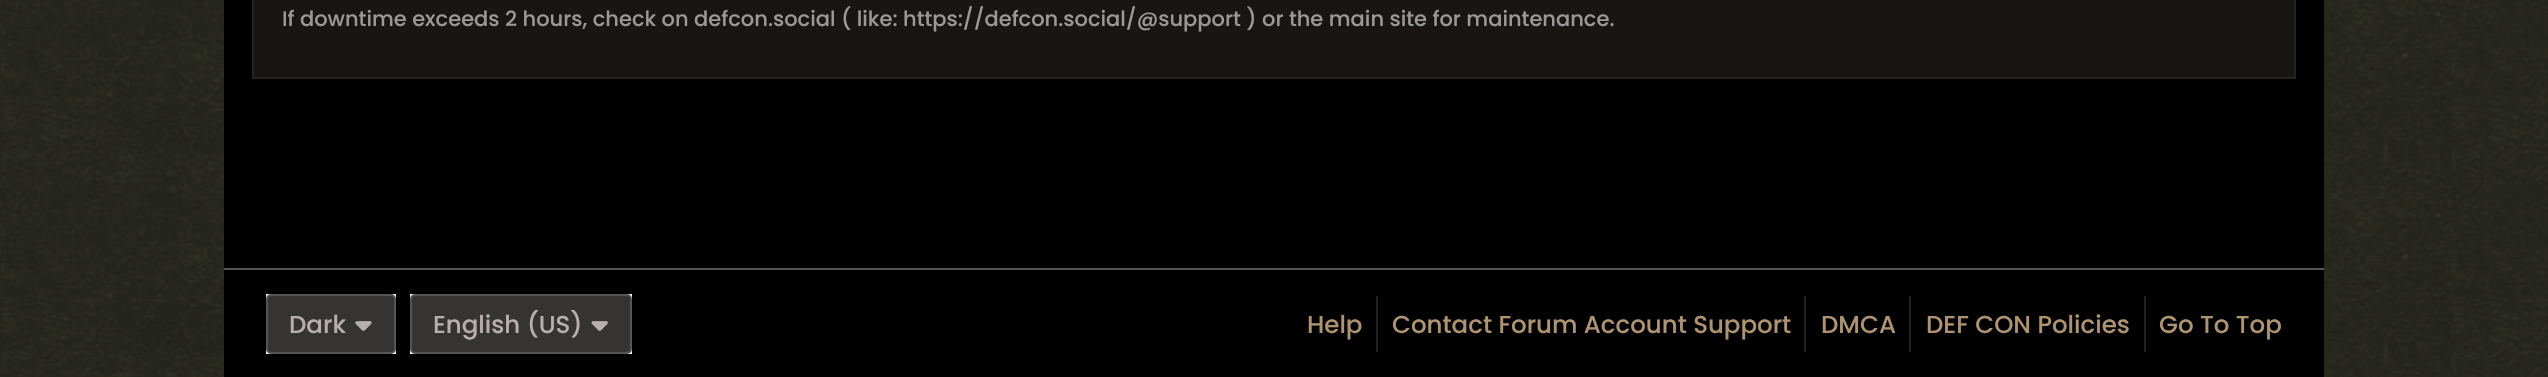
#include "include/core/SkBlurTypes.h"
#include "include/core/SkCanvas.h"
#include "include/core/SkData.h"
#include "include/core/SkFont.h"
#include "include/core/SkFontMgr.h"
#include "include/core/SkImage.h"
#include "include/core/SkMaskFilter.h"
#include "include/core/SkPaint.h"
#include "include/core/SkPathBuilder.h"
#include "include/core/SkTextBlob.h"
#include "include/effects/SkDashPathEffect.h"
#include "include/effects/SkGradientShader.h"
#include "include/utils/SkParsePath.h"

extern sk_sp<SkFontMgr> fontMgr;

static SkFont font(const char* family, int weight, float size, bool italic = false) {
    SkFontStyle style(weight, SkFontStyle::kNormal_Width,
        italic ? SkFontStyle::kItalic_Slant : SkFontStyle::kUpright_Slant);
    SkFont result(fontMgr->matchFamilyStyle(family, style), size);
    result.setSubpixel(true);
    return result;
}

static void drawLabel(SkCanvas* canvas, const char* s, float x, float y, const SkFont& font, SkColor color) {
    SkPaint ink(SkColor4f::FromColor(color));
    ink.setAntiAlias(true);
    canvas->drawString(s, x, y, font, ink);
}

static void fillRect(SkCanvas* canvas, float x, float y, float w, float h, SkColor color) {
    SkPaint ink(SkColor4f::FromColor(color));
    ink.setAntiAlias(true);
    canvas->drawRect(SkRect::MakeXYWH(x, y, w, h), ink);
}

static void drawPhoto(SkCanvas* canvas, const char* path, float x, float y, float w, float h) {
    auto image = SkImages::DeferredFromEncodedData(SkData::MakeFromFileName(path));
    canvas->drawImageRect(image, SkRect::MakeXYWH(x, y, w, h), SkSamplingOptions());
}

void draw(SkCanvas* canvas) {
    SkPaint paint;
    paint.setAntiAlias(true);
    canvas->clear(0xFFFFFFFF);
    drawPhoto(canvas, "assets/img1.png", 0, 0, 2548, 377);
    fillRect(canvas, 224, 0, 2100, 268, 0xFF000000);
    paint.setColor(0xFF191513);
    canvas->drawRect(SkRect::MakeXYWH(253, -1, 2042, 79), paint);
    paint.setStroke(true);
    paint.setStrokeWidth(2);
    paint.setColor(0xFF28221F);
    canvas->drawRect(SkRect::MakeXYWH(253, -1, 2042, 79), paint);
    SkFont font1 = font("Poppins", 500, 21);
    drawLabel(canvas, "If downtime exceeds 2 hours, check on defcon.social ( like: https://defcon.social/@support ) or the main site for maintenance.", 282, 26, font1, 0xFF9A9999);
    fillRect(canvas, 224, 270, 2100, 107, 0xFF000000);
    fillRect(canvas, 224, 268, 2100, 2, 0xFF575555);
    fillRect(canvas, 266, 294, 130, 60, 0xFFEFFEDD);
    paint.setStroke(false);
    paint.setColor(0xFF363433);
    canvas->drawRoundRect(SkRect::MakeXYWH(267, 295, 128, 58), 4, 4, paint);
    paint.setStroke(true);
    paint.setColor(0xFF575555);
    canvas->drawRoundRect(SkRect::MakeXYWH(267, 295, 128, 58), 4, 4, paint);
    SkFont font2 = font("Poppins", 500, 24.5f);
    drawLabel(canvas, "Dark", 289, 333, font2, 0xFFB6AFAD);
    drawPhoto(canvas, "assets/img2.png", 355, 321, 17, 10);
    fillRect(canvas, 410, 294, 222, 60, 0xFFEFFEDD);
    paint.setStroke(false);
    paint.setColor(0xFF363433);
    canvas->drawRoundRect(SkRect::MakeXYWH(411, 295, 220, 58), 4, 4, paint);
    paint.setStroke(true);
    paint.setColor(0xFF575555);
    canvas->drawRoundRect(SkRect::MakeXYWH(411, 295, 220, 58), 4, 4, paint);
    drawLabel(canvas, "English (US)", 433, 333, font2, 0xFFB6AFAD);
    drawPhoto(canvas, "assets/img3.png", 591, 321, 17, 10);
    drawLabel(canvas, "Help", 1307, 333, font2, 0xFFAD936E);
    fillRect(canvas, 1376, 296, 2, 56, 0xFF222222);
    drawLabel(canvas, "Contact Forum Account Support", 1392, 333, font2, 0xFFAD936E);
    fillRect(canvas, 1804, 296, 2, 56, 0xFF222222);
    drawLabel(canvas, "DMCA", 1821, 333, font2, 0xFFAD936E);
    fillRect(canvas, 1909, 296, 2, 56, 0xFF222222);
    drawLabel(canvas, "DEF CON Policies", 1926, 333, font2, 0xFFAD936E);
    fillRect(canvas, 2144, 296, 2, 56, 0xFF222222);
    drawLabel(canvas, "Go To Top", 2159, 333, font2, 0xFFAD936E);
}
